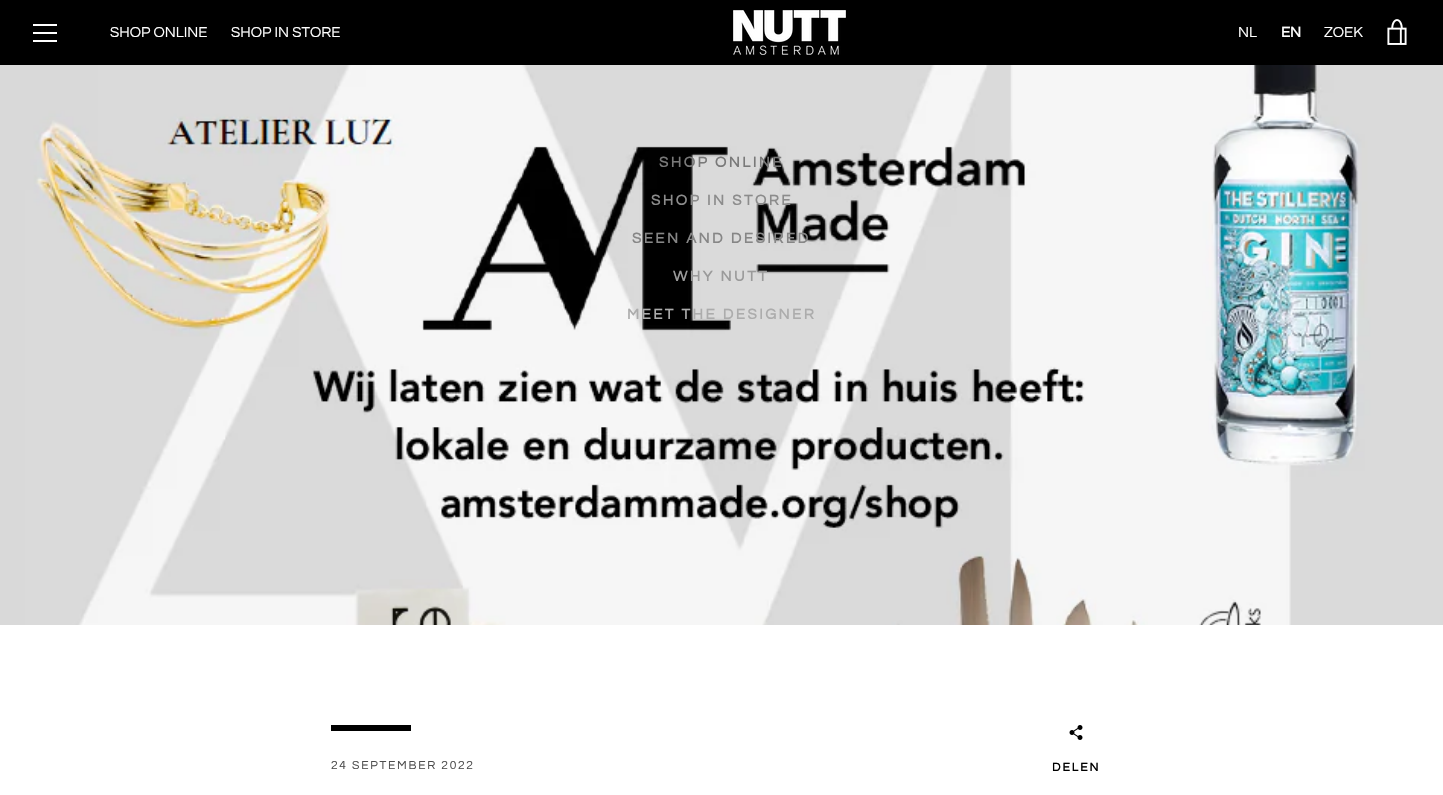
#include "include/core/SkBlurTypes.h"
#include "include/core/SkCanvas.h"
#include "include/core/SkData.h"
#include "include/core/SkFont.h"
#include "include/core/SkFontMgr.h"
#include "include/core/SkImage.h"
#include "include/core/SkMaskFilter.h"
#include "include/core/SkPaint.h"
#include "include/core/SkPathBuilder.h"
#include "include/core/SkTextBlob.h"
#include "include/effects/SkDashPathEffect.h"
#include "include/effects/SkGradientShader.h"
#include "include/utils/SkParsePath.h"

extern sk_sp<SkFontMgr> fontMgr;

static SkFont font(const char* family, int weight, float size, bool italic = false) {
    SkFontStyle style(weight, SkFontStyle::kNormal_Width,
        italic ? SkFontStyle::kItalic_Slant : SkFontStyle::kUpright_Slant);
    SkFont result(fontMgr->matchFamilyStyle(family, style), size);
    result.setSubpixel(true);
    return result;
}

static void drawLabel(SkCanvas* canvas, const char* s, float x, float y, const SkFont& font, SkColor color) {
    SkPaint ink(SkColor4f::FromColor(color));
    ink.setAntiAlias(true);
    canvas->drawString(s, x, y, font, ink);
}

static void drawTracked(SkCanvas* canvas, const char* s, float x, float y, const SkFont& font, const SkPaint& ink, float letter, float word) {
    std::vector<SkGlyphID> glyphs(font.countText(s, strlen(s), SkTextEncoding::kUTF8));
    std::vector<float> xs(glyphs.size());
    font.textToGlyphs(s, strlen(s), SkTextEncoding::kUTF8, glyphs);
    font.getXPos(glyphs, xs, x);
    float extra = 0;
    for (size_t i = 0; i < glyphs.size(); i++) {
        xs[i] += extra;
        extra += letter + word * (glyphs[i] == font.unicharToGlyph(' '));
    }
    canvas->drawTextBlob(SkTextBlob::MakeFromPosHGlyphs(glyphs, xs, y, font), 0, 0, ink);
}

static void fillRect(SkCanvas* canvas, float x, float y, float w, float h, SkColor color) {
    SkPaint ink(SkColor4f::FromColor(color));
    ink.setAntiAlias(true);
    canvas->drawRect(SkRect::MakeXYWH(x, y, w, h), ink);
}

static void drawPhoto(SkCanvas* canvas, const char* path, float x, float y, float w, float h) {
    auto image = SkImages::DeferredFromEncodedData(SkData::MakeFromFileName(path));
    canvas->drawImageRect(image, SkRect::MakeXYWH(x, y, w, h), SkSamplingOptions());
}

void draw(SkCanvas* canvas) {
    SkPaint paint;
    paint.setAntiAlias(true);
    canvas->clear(0xFFFFFFFF);
    fillRect(canvas, 0, 0, 1443, 65, 0xFF000000);
    SkFont font1 = font("Questrial", 400, 15);
    drawLabel(canvas, "SHOP ONLINE", 110, 37, font1, 0xFFFFFFFF);
    drawLabel(canvas, "SHOP IN STORE", 231, 37, font1, 0xFFFFFFFF);
    drawPhoto(canvas, "assets/img1.png", 733, 10, 113, 45);
    drawLabel(canvas, "NL", 1238, 37, font1, 0xFFFFFFFF);
    SkFont font2 = font("Questrial", 700, 15);
    drawLabel(canvas, "EN", 1281, 37, font2, 0xFFFFFFFF);
    drawLabel(canvas, "ZOEK", 1324, 37, font1, 0xFFFFFFFF);
    drawPhoto(canvas, "assets/img2.png", 1387, 19, 20, 26);
    fillRect(canvas, 33, 24, 24, 2, 0xFFFFFFFF);
    fillRect(canvas, 33, 32, 24, 2, 0xFFFFFFFF);
    fillRect(canvas, 33, 40, 24, 2, 0xFFFFFFFF);
    drawPhoto(canvas, "assets/img3.png", 0, 65, 1443, 560);
    paint.setColor(0xFF797979);
    drawTracked(canvas, "SHOP ONLINE", 659, 167, font2, paint, 2.5f, 0);
    paint.setColor(0xFF8C8C8C);
    drawTracked(canvas, "SHOP IN STORE", 651, 205, font2, paint, 2.5f, 0);
    paint.setColor(0xFF868686);
    drawTracked(canvas, "SEEN AND DESIRED", 632, 243, font2, paint, 2.5f, 0);
    paint.setColor(0xFF9A9A9A);
    drawTracked(canvas, "WHY NUTT", 673, 281, font2, paint, 2.5f, 0);
    paint.setColor(0xFFACACAC);
    drawTracked(canvas, "MEET THE DESIGNER", 627, 319, font2, paint, 2.5f, 0);
    fillRect(canvas, 331, 725, 80, 6, 0xFF000000);
    SkFont font3 = font("Questrial", 400, 12);
    paint.setColor(0xFF4D4D4D);
    drawTracked(canvas, "24 SEPTEMBER 2022", 331, 769, font3, paint, 1.75f, 0);
    drawPhoto(canvas, "assets/img4.png", 1069, 725, 14, 15);
    SkFont font4 = font("Questrial", 700, 12);
    paint.setColor(0xFF000000);
    drawTracked(canvas, "DELEN", 1052, 771, font4, paint, 2, 0);
}
